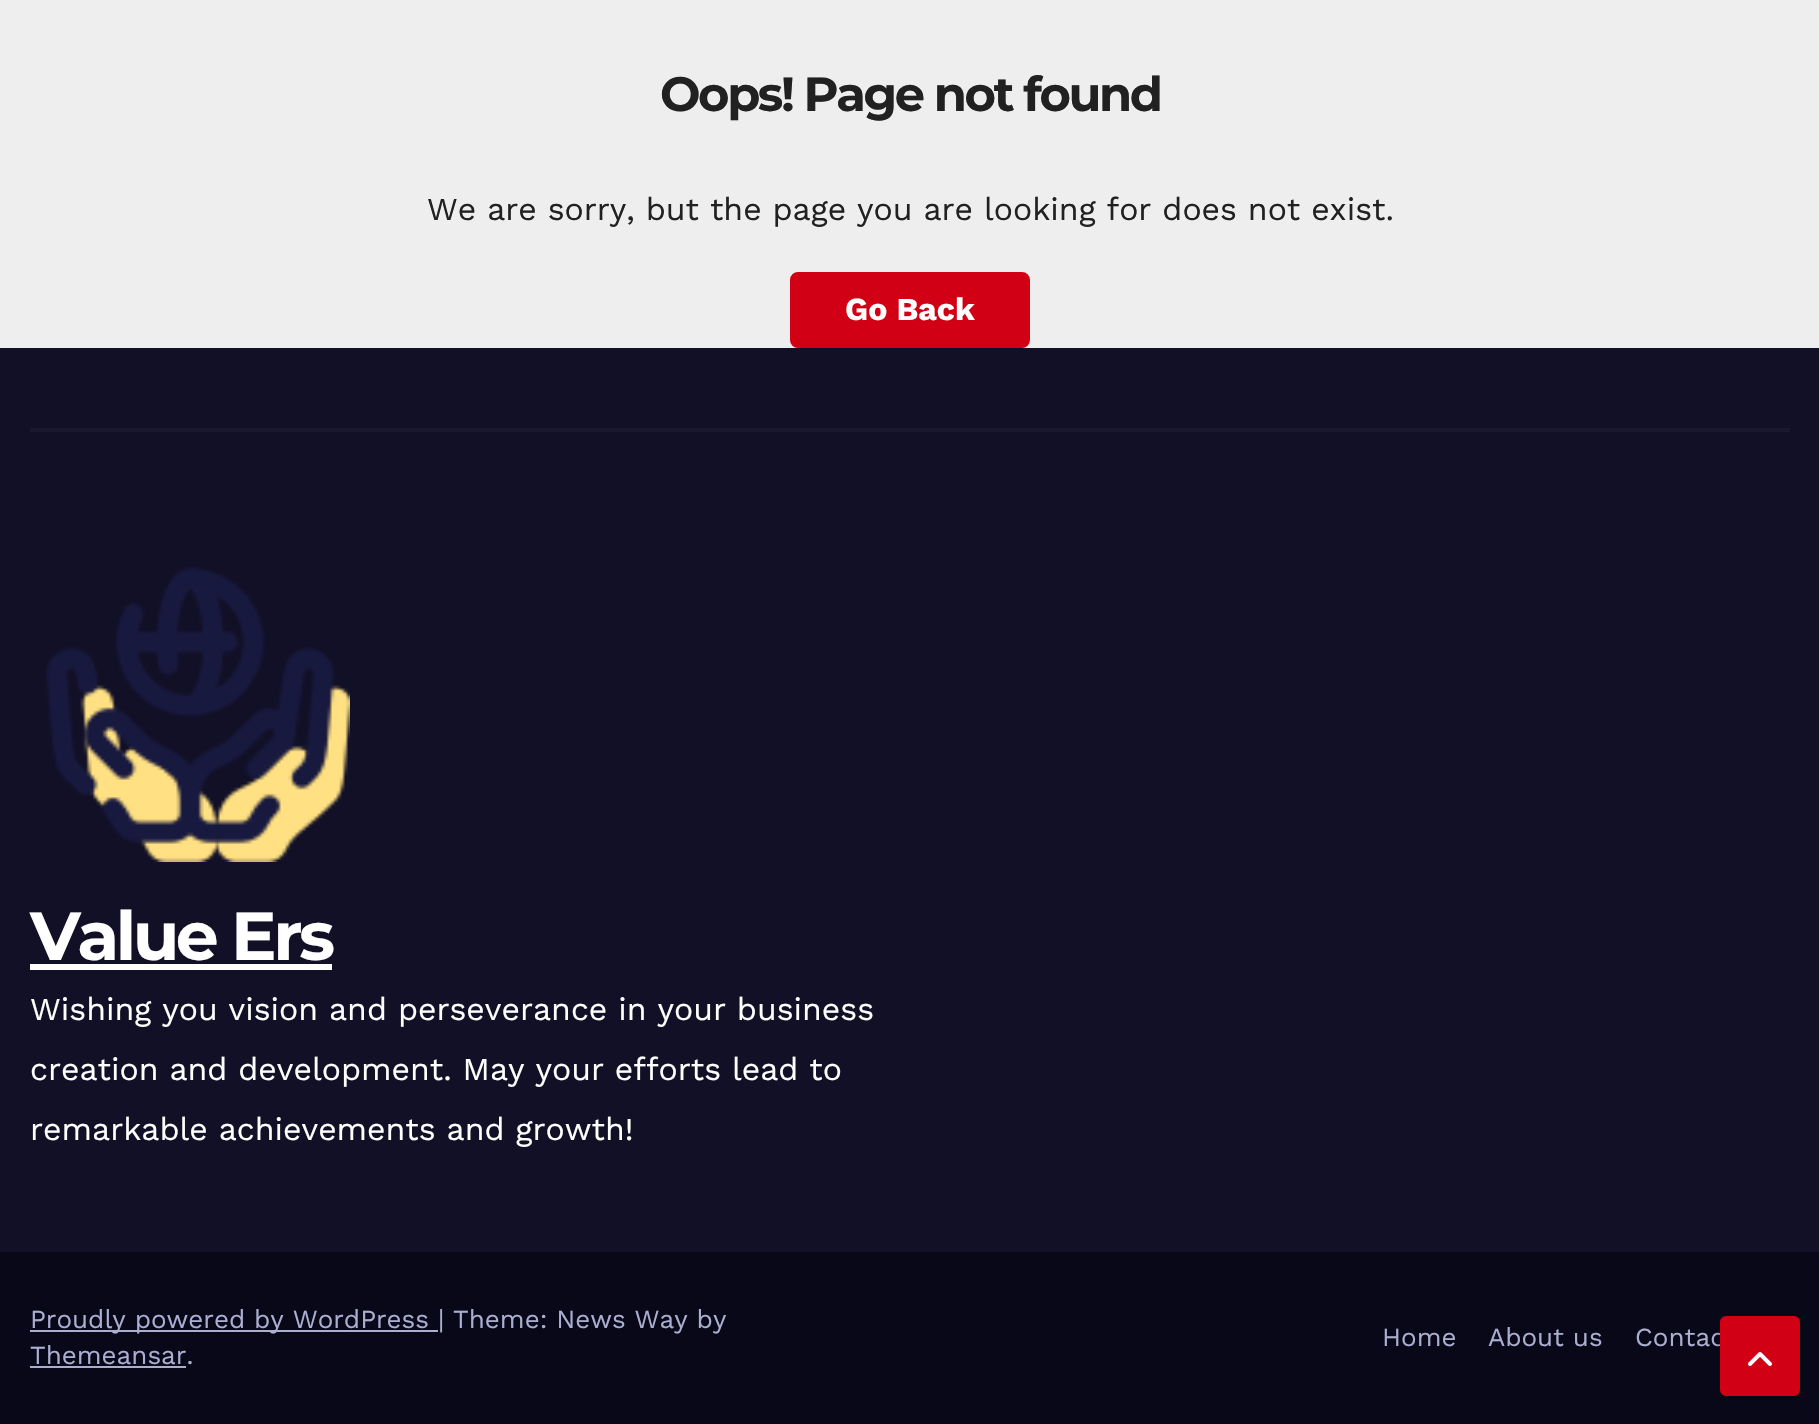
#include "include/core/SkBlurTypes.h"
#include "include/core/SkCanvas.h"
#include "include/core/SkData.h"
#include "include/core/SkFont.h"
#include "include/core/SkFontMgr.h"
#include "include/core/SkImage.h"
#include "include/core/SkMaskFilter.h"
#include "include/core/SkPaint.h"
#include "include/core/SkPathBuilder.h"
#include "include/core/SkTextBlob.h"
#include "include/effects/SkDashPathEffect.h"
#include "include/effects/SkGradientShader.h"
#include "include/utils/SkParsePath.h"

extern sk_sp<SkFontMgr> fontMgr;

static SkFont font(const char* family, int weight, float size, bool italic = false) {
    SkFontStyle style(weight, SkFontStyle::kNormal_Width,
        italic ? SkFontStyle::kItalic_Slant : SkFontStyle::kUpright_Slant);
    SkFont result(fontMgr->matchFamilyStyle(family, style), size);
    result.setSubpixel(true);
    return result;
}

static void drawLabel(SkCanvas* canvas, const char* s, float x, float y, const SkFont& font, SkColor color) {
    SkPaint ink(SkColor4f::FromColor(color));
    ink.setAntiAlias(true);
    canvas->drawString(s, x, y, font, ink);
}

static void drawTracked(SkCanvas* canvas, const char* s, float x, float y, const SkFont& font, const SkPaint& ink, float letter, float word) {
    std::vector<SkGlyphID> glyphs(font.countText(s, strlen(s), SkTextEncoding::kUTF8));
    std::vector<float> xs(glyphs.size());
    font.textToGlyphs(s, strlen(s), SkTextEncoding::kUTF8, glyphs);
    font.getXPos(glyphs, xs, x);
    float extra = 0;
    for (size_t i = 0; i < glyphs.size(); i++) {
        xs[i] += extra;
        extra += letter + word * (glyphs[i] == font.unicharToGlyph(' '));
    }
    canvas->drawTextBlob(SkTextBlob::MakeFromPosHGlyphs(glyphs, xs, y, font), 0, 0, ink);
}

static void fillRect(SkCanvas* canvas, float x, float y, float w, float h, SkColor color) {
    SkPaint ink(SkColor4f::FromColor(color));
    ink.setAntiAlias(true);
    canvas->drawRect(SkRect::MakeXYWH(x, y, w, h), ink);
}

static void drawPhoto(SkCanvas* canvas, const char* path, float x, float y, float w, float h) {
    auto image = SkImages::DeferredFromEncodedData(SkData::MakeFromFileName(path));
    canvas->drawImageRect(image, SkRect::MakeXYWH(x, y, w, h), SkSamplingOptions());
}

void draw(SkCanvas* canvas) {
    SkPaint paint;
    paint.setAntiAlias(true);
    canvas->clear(0xFFEEEEEE);
    SkFont font1 = font("Montserrat", 700, 48);
    paint.setColor(0xFF212121);
    drawTracked(canvas, "Oops! Page not found", 660, 111, font1, paint, -2.4f, 0);
    SkFont font2 = font("Work Sans", 400, 32);
    drawLabel(canvas, "We are sorry, but the page you are looking for does not exist.", 427, 220, font2, 0xFF212121);
    paint.setColor(0xFFD10014);
    canvas->drawRoundRect(SkRect::MakeXYWH(792, 274, 236, 72), 6, 6, paint);
    paint.setStroke(true);
    paint.setStrokeWidth(4);
    canvas->drawRoundRect(SkRect::MakeXYWH(792, 274, 236, 72), 6, 6, paint);
    SkFont font3 = font("Work Sans", 700, 32);
    drawLabel(canvas, "Go Back", 845, 320, font3, 0xFFFFFFFF);
    fillRect(canvas, 0, 348, 1819, 904, 0xFF121026);
    fillRect(canvas, 30, 428, 1760, 4, 0xFF1A182E);
    drawPhoto(canvas, "assets/img1.png", 45, 567, 305, 295);
    SkFont font4 = font("Montserrat", 700, 68);
    paint.setStroke(false);
    paint.setColor(0xFFFFFFFF);
    drawTracked(canvas, "Value Ers", 30, 960, font4, paint, -3.5f, 0);
    fillRect(canvas, 30, 964, 302, 6, 0xFFFFFFFF);
    drawLabel(canvas, "Wishing you vision and perseverance in your business", 30, 1020, font2, 0xFFFFFFFF);
    drawLabel(canvas, "creation and development. May your efforts lead to", 30, 1080, font2, 0xFFFFFFFF);
    drawLabel(canvas, "remarkable achievements and growth!", 30, 1140, font2, 0xFFFFFFFF);
    fillRect(canvas, 0, 1252, 1819, 172, 0xFF090818);
    fillRect(canvas, 30, 1330, 408, 2, 0xFFAAAED1);
    SkFont font5 = font("Work Sans", 400, 26);
    drawLabel(canvas, "Proudly powered by WordPress | Theme: News Way by", 30, 1328, font5, 0xFFAAAED1);
    drawLabel(canvas, "Themeansar.", 30, 1364, font5, 0xFFAAAED1);
    fillRect(canvas, 30, 1366, 156, 2, 0xFFAAAED1);
    drawLabel(canvas, "Home", 1382, 1346, font5, 0xFFAAAED1);
    drawLabel(canvas, "About us", 1488, 1346, font5, 0xFFAAAED1);
    drawLabel(canvas, "Contac", 1635, 1346, font5, 0xFFAAAED1);
    paint.setColor(0x1F000000);
    paint.setMaskFilter(SkMaskFilter::MakeBlur(kNormal_SkBlurStyle, 5));
    canvas->drawRoundRect(SkRect::MakeXYWH(1720, 1318, 80, 80), 6, 6, paint);
    paint.setMaskFilter(nullptr);
    paint.setColor(0x24000000);
    paint.setMaskFilter(SkMaskFilter::MakeBlur(kNormal_SkBlurStyle, 2));
    canvas->drawRoundRect(SkRect::MakeXYWH(1720, 1320, 80, 80), 6, 6, paint);
    paint.setMaskFilter(nullptr);
    paint.setColor(0xFFD10014);
    canvas->drawRoundRect(SkRect::MakeXYWH(1722, 1318, 76, 76), 4, 4, paint);
    paint.setStroke(true);
    canvas->drawRoundRect(SkRect::MakeXYWH(1722, 1318, 76, 76), 4, 4, paint);
    drawPhoto(canvas, "assets/img2.png", 1748, 1352, 24, 14);
}
